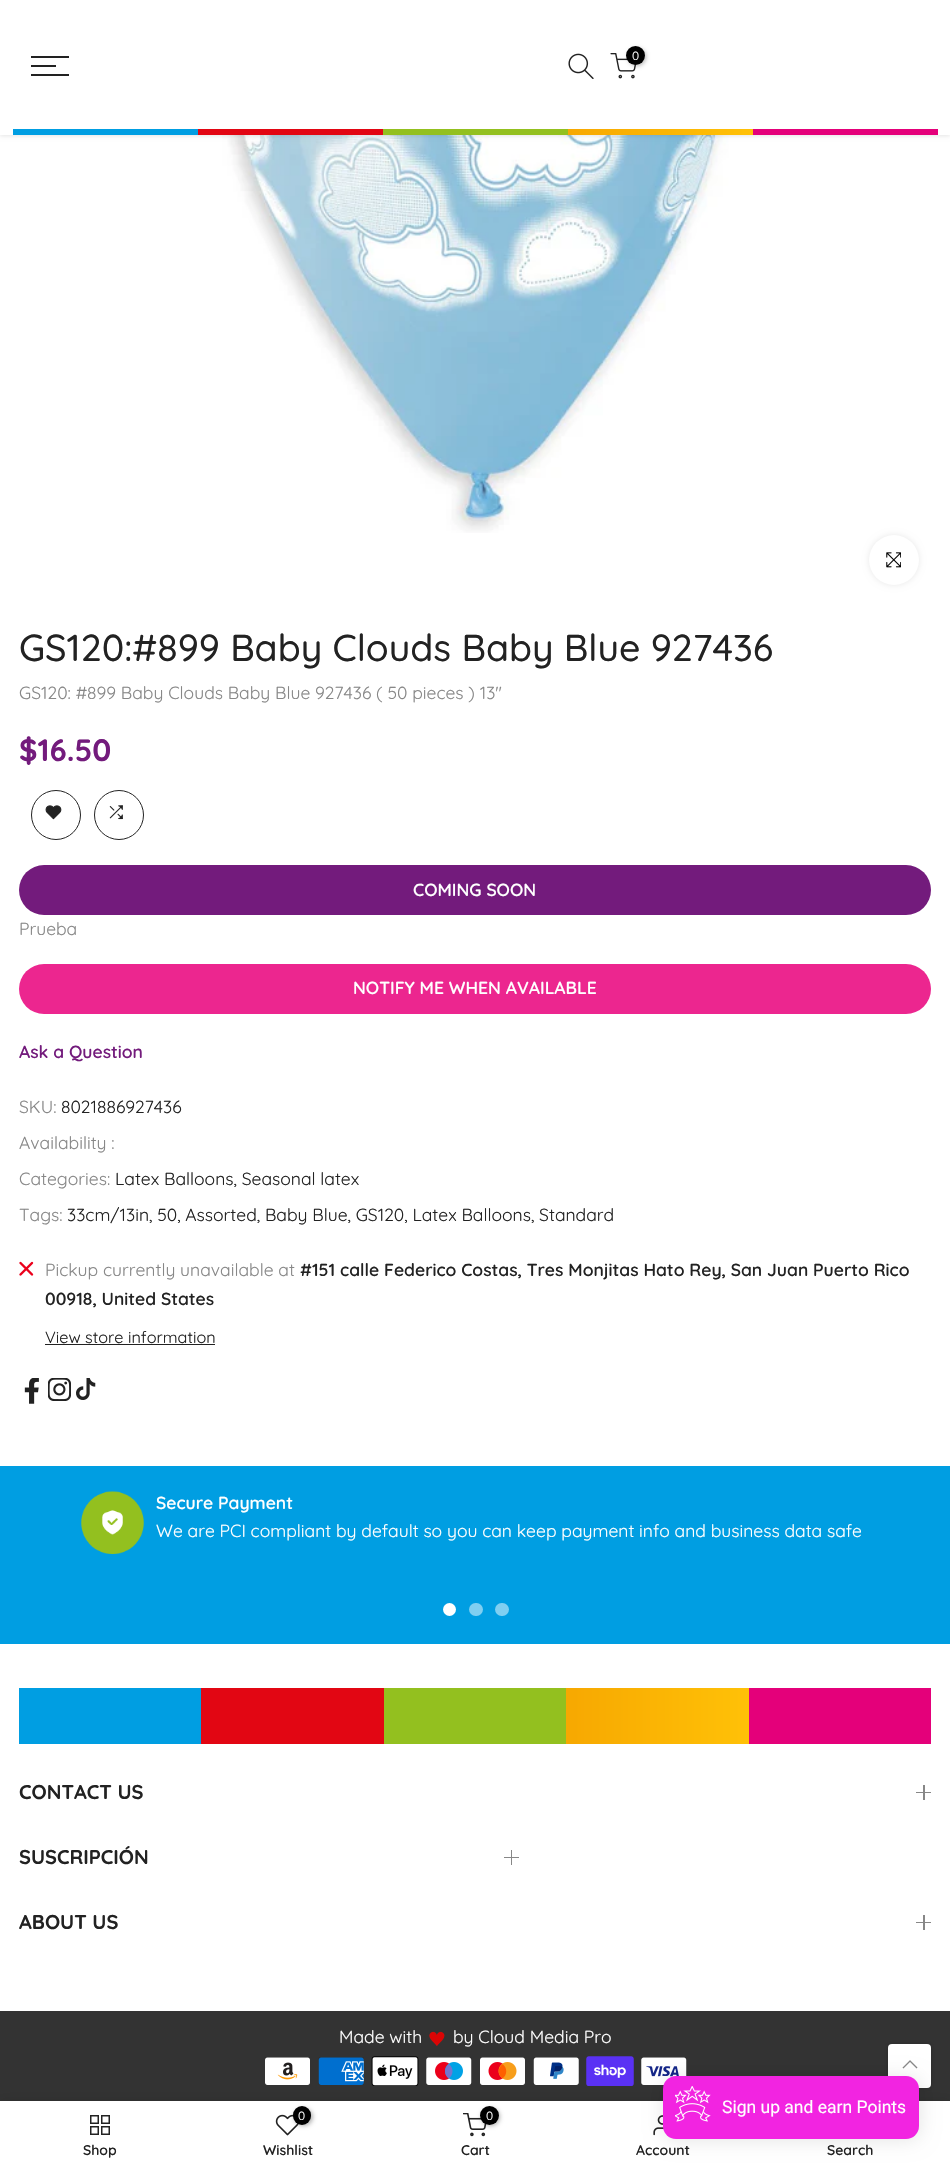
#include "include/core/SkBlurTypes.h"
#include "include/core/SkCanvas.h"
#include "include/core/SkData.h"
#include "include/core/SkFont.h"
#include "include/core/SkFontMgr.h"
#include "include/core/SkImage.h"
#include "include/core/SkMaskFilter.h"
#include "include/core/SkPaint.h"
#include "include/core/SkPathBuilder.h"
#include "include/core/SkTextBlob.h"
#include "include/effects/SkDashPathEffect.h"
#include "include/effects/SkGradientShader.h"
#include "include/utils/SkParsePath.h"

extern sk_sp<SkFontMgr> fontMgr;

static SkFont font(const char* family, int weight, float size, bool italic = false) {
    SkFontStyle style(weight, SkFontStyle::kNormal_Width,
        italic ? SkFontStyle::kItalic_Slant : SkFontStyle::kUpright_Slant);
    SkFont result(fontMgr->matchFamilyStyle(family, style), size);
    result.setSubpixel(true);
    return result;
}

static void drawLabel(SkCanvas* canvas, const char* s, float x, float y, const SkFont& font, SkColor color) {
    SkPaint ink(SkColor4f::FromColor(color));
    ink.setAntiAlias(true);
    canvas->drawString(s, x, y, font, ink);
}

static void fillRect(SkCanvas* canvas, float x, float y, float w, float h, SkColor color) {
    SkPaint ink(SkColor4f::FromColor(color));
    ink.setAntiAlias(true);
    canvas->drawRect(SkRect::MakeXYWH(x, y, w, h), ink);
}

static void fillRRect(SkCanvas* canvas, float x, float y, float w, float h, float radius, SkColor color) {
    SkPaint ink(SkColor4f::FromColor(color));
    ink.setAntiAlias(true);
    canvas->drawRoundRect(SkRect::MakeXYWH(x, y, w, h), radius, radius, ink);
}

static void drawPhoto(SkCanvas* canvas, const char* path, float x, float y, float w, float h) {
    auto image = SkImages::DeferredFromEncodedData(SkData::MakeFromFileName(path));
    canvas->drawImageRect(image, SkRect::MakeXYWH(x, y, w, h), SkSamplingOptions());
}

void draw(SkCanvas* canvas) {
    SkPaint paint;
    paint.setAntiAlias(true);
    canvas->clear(0xFFFFFFFF);
    drawPhoto(canvas, "assets/img3.png", 219, 135, 510, 398);
    paint.setColor(0x1A000000);
    paint.setMaskFilter(SkMaskFilter::MakeBlur(kNormal_SkBlurStyle, 2));
    canvas->drawRect(SkRect::MakeXYWH(0, 1, 950, 135), paint);
    paint.setMaskFilter(nullptr);
    fillRect(canvas, 0, 0, 950, 135, 0xFFFFFFFF);
    fillRect(canvas, 31, 56, 38, 2, 0xFF222222);
    fillRect(canvas, 31, 65, 25, 2, 0xFF222222);
    fillRect(canvas, 31, 74, 38, 2, 0xFF222222);
    drawPhoto(canvas, "assets/img1.png", 568, 53, 26, 26);
    drawPhoto(canvas, "assets/img2.png", 610, 53, 27, 26);
    paint.setColor(0x4D000000);
    paint.setMaskFilter(SkMaskFilter::MakeBlur(kNormal_SkBlurStyle, 2));
    canvas->drawRoundRect(SkRect::MakeXYWH(628, 48, 18, 18), 9, 9, paint);
    paint.setMaskFilter(nullptr);
    paint.setColor(0xFF000000);
    canvas->drawCircle(635.5f, 55.5f, 9.5f, paint);
    SkFont font1 = font("Quicksand", 400, 12);
    drawLabel(canvas, "0", 632, 60, font1, 0xFFFFFFFF);
    {
        const SkColor colors[] = {0xFF009EE2, 0xFFE20613, 0xFFE20613, 0xFF93C01F, 0xFF93C01F, 0xFFF7A801, 0xFFFFC107, 0xFFE4007A};
        const float stops[] = {0.2f, 0.2f, 0.4f, 0.4f, 0.6f, 0.6f, 0.8f, 0.8f};
        const SkPoint ends[] = {{13, 132}, {938, 132}};
        paint.setShader(SkGradientShader::MakeLinear(ends, colors, stops, 8, SkTileMode::kClamp));
        paint.setAlpha(255);
    }
    canvas->drawRect(SkRect::MakeXYWH(13, 129, 925, 6), paint);
    paint.setShader(nullptr);
    paint.setColor(0x17000000);
    paint.setMaskFilter(SkMaskFilter::MakeBlur(kNormal_SkBlurStyle, 3));
    canvas->drawRoundRect(SkRect::MakeXYWH(869, 535, 50, 50), 25, 25, paint);
    paint.setMaskFilter(nullptr);
    paint.setColor(0xFFFFFFFF);
    canvas->drawCircle(894, 560, 25, paint);
    drawPhoto(canvas, "assets/img4.png", 886, 552, 15, 16);
    SkFont font2 = font("Quicksand", 500, 37.5f);
    drawLabel(canvas, "GS120:#899 Baby Clouds Baby Blue 927436", 19, 661, font2, 0xFF222222);
    SkFont font3 = font("Quicksand", 400, 17.5f);
    drawLabel(canvas, "GS120: #899 Baby Clouds Baby Blue 927436 ( 50 pieces ) 13\"", 19, 699, font3, 0xFF878787);
    SkFont font4 = font("Quicksand", 700, 31);
    drawLabel(canvas, "$16.50", 19, 761, font4, 0xFF731B7C);
    paint.setStroke(true);
    paint.setStrokeWidth(1);
    paint.setColor(0xFF222222);
    canvas->drawCircle(56, 815, 24.5f, paint);
    drawPhoto(canvas, "assets/img5.png", 45, 805, 17, 15);
    canvas->drawCircle(119, 815, 24.5f, paint);
    drawPhoto(canvas, "assets/img6.png", 109, 805, 14, 15);
    fillRRect(canvas, 19, 865, 912, 50, 25, 0xFF731B7C);
    SkFont font5 = font("Quicksand", 600, 17.5f);
    drawLabel(canvas, "COMING SOON", 413, 896, font5, 0xFFFFFFFF);
    drawLabel(canvas, "Prueba", 19, 935, font3, 0xFF878787);
    fillRRect(canvas, 19, 964, 912, 50, 25, 0xFFEC268F);
    drawLabel(canvas, "NOTIFY ME WHEN AVAILABLE", 353, 994, font5, 0xFFFFFFFF);
    drawLabel(canvas, "Ask a Question", 19, 1058, font5, 0xFF731B7C);
    drawLabel(canvas, "SKU:", 19, 1113, font3, 0xFF878787);
    drawLabel(canvas, "8021886927436", 61, 1113, font3, 0xFF222222);
    drawLabel(canvas, "Availability :", 19, 1149, font3, 0xFF878787);
    drawLabel(canvas, "Categories:", 19, 1185, font3, 0xFF878787);
    drawLabel(canvas, "Latex Balloons, Seasonal latex", 115, 1185, font3, 0xFF222222);
    drawLabel(canvas, "Tags:", 19, 1221, font3, 0xFF878787);
    drawLabel(canvas, "33cm/13in, 50, Assorted, Baby Blue, GS120, Latex Balloons, Standard", 67, 1221, font3, 0xFF222222);
    drawPhoto(canvas, "assets/img7.png", 19, 1261, 15, 15);
    drawLabel(canvas, "Pickup currently unavailable at", 45, 1276, font3, 0xFF878787);
    drawLabel(canvas, "#151 calle Federico Costas, Tres Monjitas Hato Rey, San Juan Puerto Rico", 300, 1276, font5, 0xFF222222);
    drawLabel(canvas, "00918, United States", 45, 1305, font5, 0xFF222222);
    SkFont font6 = font("Quicksand", 400, 16.25f);
    drawLabel(canvas, "View store information", 45, 1343, font6, 0xFF222222);
    fillRect(canvas, 45, 1344, 170, 1, 0xFF222222);
    drawPhoto(canvas, "assets/img8.png", 24, 1378, 15, 26);
    drawPhoto(canvas, "assets/img9.png", 48, 1378, 23, 23);
    drawPhoto(canvas, "assets/img10.png", 76, 1378, 20, 22);
    fillRect(canvas, 0, 1466, 950, 178, 0xFF009EE2);
    drawPhoto(canvas, "assets/img11.png", 81, 1491, 63, 63);
    drawLabel(canvas, "Secure Payment", 156, 1509, font5, 0xFFFFFFFF);
    drawLabel(canvas, "We are PCI compliant by default so you can keep payment info and business data safe", 156, 1537, font3, 0xFFFFFFFF);
    paint.setStroke(false);
    paint.setColor(0xFFFFFFFF);
    canvas->drawCircle(449.5f, 1609.5f, 6.5f, paint);
    fillRRect(canvas, 469, 1603, 14, 13, 6.5f, 0xFF80CFF1);
    fillRRect(canvas, 495, 1603, 14, 13, 6.5f, 0xFF80CFF1);
    {
        const SkColor colors[] = {0xFF009EE2, 0xFFE20613, 0xFFE20613, 0xFF93C01F, 0xFF93C01F, 0xFFF7A801, 0xFFFFC107, 0xFFE4007A};
        const float stops[] = {0.2f, 0.2f, 0.4f, 0.4f, 0.6f, 0.6f, 0.8f, 0.8f};
        const SkPoint ends[] = {{19, 1716}, {931, 1716}};
        paint.setShader(SkGradientShader::MakeLinear(ends, colors, stops, 8, SkTileMode::kClamp));
        paint.setAlpha(255);
    }
    canvas->drawRect(SkRect::MakeXYWH(19, 1688, 912, 56), paint);
    SkFont font7 = font("Quicksand", 700, 20);
    drawLabel(canvas, "CONTACT US", 19, 1799, font7, 0xFF222222);
    fillRect(canvas, 923, 1785, 2, 15, 0xFF878787);
    fillRect(canvas, 916, 1792, 15, 1, 0xFF878787);
    drawLabel(canvas, "SUSCRIPCIÓN", 19, 1864, font7, 0xFF222222);
    fillRect(canvas, 511, 1850, 1, 15, 0xFF878787);
    fillRect(canvas, 504, 1857, 15, 1, 0xFF878787);
    drawLabel(canvas, "ABOUT US", 19, 1929, font7, 0xFF222222);
    fillRect(canvas, 923, 1915, 2, 15, 0xFF878787);
    fillRect(canvas, 916, 1922, 15, 1, 0xFF878787);
    fillRect(canvas, 0, 2011, 950, 90, 0xFF333333);
    drawLabel(canvas, "Made with", 339, 2043, font3, 0xFFFFFFFF);
    drawPhoto(canvas, "assets/img12.png", 429, 2031, 16, 15);
    drawLabel(canvas, "by Cloud Media Pro", 453, 2043, font3, 0xFFFFFFFF);
    drawPhoto(canvas, "assets/img13.png", 265, 2057, 45, 28);
    drawPhoto(canvas, "assets/img14.png", 318, 2057, 46, 28);
    drawPhoto(canvas, "assets/img15.png", 371, 2056, 48, 30);
    drawPhoto(canvas, "assets/img16.png", 426, 2057, 46, 28);
    drawPhoto(canvas, "assets/img17.png", 480, 2057, 45, 28);
    drawPhoto(canvas, "assets/img18.png", 533, 2057, 46, 28);
    drawPhoto(canvas, "assets/img19.png", 586, 2056, 48, 30);
    drawPhoto(canvas, "assets/img20.png", 641, 2057, 46, 28);
    paint.setShader(nullptr);
    paint.setColor(0x33000000);
    paint.setMaskFilter(SkMaskFilter::MakeBlur(kNormal_SkBlurStyle, 2));
    canvas->drawRoundRect(SkRect::MakeXYWH(888, 2044, 43, 44), 4, 4, paint);
    paint.setMaskFilter(nullptr);
    fillRRect(canvas, 888, 2044, 43, 44, 4, 0xFFFFFFFF);
    drawPhoto(canvas, "assets/img21.png", 902, 2060, 16, 9);
    paint.setColor(0x1F000000);
    paint.setMaskFilter(SkMaskFilter::MakeBlur(kNormal_SkBlurStyle, 5.5f));
    canvas->drawRect(SkRect::MakeXYWH(0, 2101, 950, 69), paint);
    paint.setMaskFilter(nullptr);
    fillRect(canvas, 0, 2101, 950, 68, 0xFFFFFFFF);
    drawPhoto(canvas, "assets/img25.png", 653, 2115, 11, 21);
    paint.setColor(0x1A000000);
    paint.setMaskFilter(SkMaskFilter::MakeBlur(kNormal_SkBlurStyle, 9.5f));
    canvas->drawRoundRect(SkRect::MakeXYWH(664, 2078, 256, 62), 13, 13, paint);
    paint.setMaskFilter(nullptr);
    fillRRect(canvas, 663, 2076, 256, 63, 13, 0xFFF224E1);
    drawPhoto(canvas, "assets/img22.png", 675, 2086, 36, 36);
    SkFont font8 = font("Roboto", 400, 17.5f);
    drawLabel(canvas, "Sign up and earn Points", 722, 2113, font8, 0xFFFFFFFF);
    paint.setStroke(true);
    paint.setStrokeWidth(1.5f);
    paint.setColor(0xFF222222);
    canvas->drawRect(SkRect::MakeXYWH(90.75f, 2115.75f, 7.5f, 7.5f), paint);
    canvas->drawRect(SkRect::MakeXYWH(101.75f, 2115.75f, 7.5f, 7.5f), paint);
    canvas->drawRect(SkRect::MakeXYWH(90.75f, 2126.75f, 7.5f, 7.5f), paint);
    canvas->drawRect(SkRect::MakeXYWH(101.75f, 2126.75f, 7.5f, 7.5f), paint);
    SkFont font9 = font("Quicksand", 600, 14);
    drawLabel(canvas, "Shop", 83, 2155, font9, 0xFF222222);
    drawPhoto(canvas, "assets/img23.png", 275, 2114, 24, 22);
    paint.setStroke(false);
    paint.setColor(0x4D000000);
    paint.setMaskFilter(SkMaskFilter::MakeBlur(kNormal_SkBlurStyle, 2));
    canvas->drawRoundRect(SkRect::MakeXYWH(294, 2108, 19, 18), 9, 9, paint);
    paint.setMaskFilter(nullptr);
    fillRRect(canvas, 293, 2106, 18, 19, 9, 0xFF000000);
    drawLabel(canvas, "0", 298, 2120, font1, 0xFFFFFFFF);
    drawLabel(canvas, "Wishlist", 263, 2155, font9, 0xFF222222);
    drawPhoto(canvas, "assets/img24.png", 463, 2113, 24, 24);
    paint.setMaskFilter(SkMaskFilter::MakeBlur(kNormal_SkBlurStyle, 2));
    canvas->drawRoundRect(SkRect::MakeXYWH(481, 2108, 19, 18), 9, 9, paint);
    paint.setMaskFilter(nullptr);
    paint.setColor(0xFF000000);
    canvas->drawCircle(489.5f, 2115.5f, 9.5f, paint);
    drawLabel(canvas, "0", 486, 2120, font1, 0xFFFFFFFF);
    drawLabel(canvas, "Cart", 461, 2155, font9, 0xFF222222);
    drawLabel(canvas, "Account", 636, 2155, font9, 0xFF222222);
    drawLabel(canvas, "Search", 827, 2155, font9, 0xFF222222);
}
